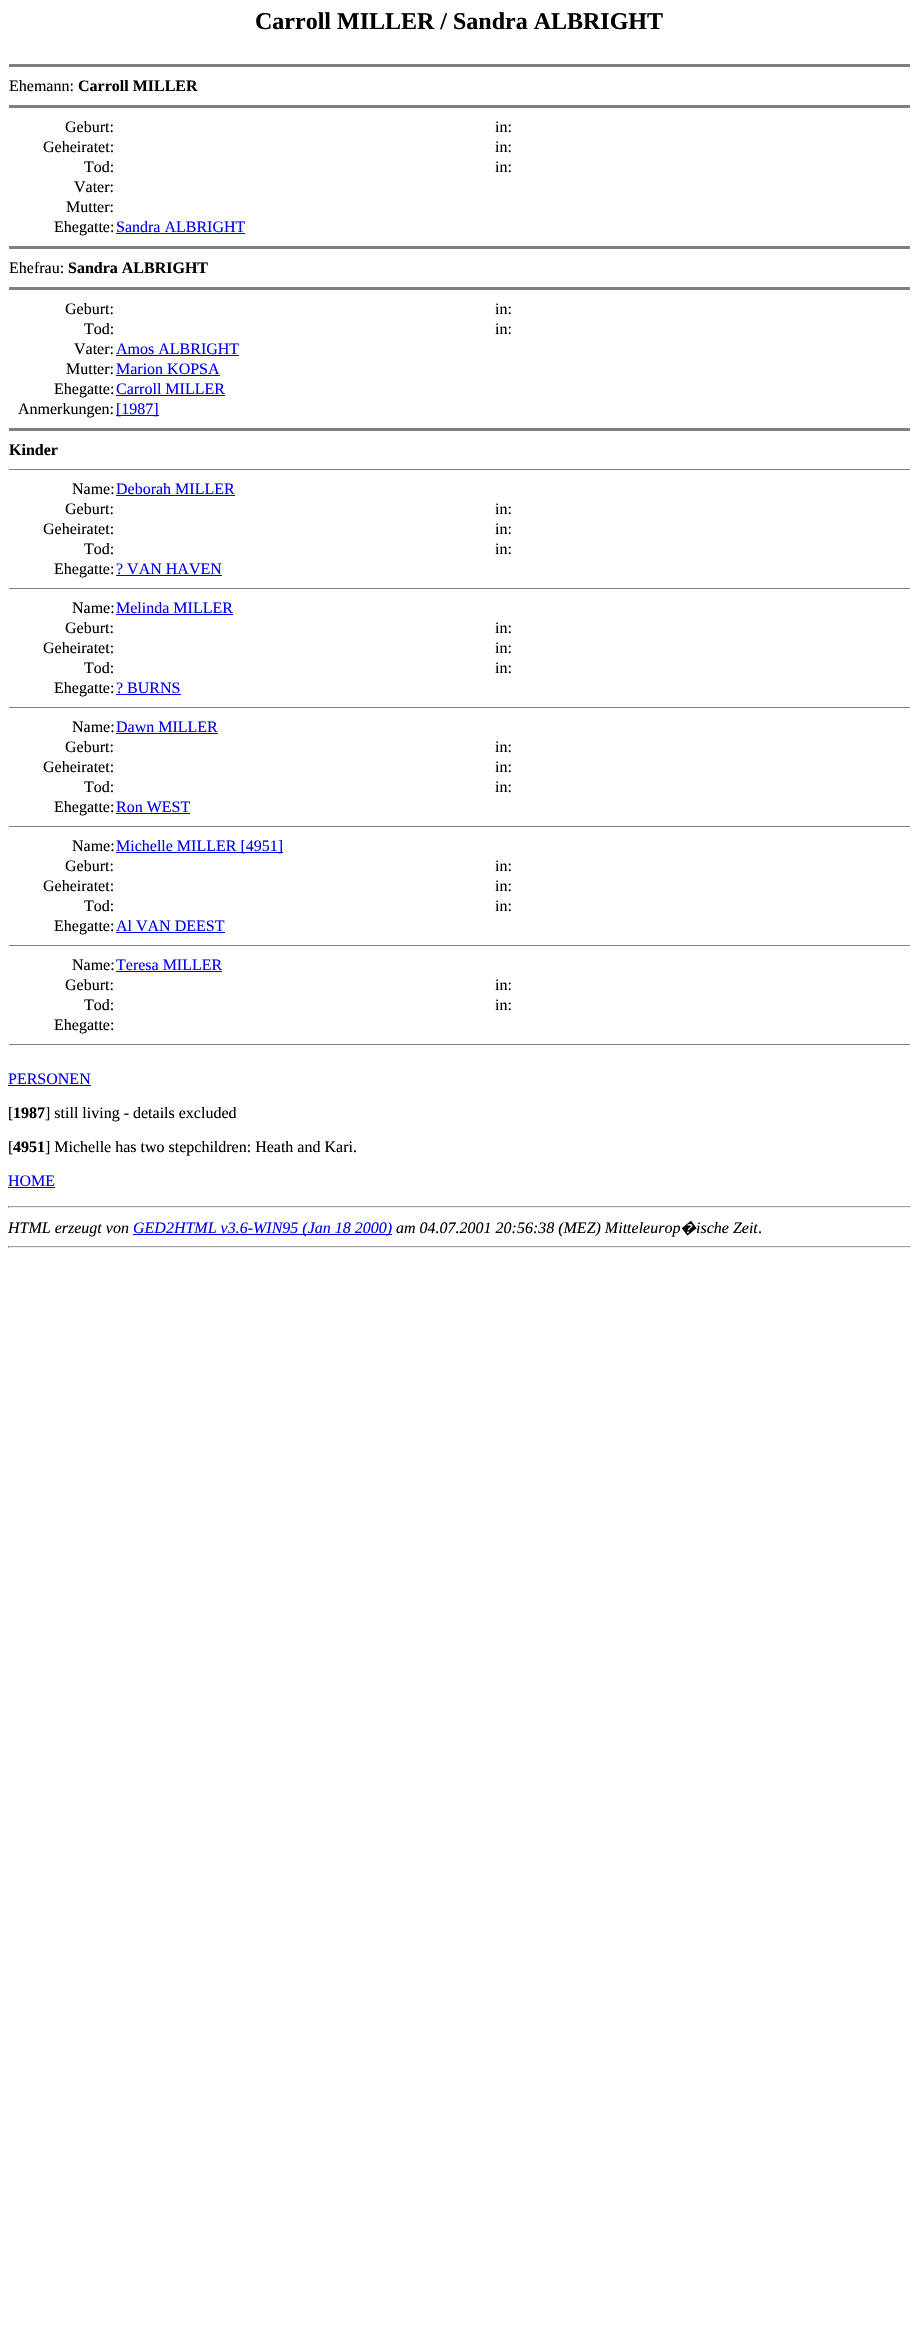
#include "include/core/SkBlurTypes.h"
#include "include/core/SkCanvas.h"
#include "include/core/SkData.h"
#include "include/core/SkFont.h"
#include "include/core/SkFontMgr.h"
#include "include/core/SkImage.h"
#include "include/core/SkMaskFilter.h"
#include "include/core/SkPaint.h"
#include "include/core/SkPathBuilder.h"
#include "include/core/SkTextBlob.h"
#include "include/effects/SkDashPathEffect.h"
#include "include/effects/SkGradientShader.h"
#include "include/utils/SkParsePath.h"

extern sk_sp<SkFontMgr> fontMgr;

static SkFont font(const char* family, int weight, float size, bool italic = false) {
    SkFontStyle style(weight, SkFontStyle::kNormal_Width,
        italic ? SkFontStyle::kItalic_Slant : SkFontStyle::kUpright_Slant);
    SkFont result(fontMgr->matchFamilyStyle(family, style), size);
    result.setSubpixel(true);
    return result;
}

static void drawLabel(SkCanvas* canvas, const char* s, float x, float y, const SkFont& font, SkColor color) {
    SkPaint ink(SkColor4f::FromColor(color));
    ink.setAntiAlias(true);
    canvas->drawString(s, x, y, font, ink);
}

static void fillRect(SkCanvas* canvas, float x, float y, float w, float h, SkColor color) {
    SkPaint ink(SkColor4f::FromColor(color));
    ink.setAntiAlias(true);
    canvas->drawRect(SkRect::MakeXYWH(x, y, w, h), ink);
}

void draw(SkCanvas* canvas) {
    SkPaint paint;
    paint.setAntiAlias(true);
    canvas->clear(0xFFFFFFFF);
    SkFont font1 = font("Liberation Serif", 700, 24);
    drawLabel(canvas, "Carroll MILLER / Sandra ALBRIGHT", 255, 29, font1, 0xFF000000);
    fillRect(canvas, 9, 64, 901, 3, 0xFF808080);
    SkFont font2 = font("Liberation Serif", 400, 16);
    drawLabel(canvas, "Ehemann:", 9, 91, font2, 0xFF000000);
    SkFont font3 = font("Liberation Serif", 700, 16);
    drawLabel(canvas, "Carroll MILLER", 78, 91, font3, 0xFF000000);
    fillRect(canvas, 9, 105, 901, 3, 0xFF808080);
    drawLabel(canvas, "Geburt:", 65, 132, font2, 0xFF000000);
    drawLabel(canvas, "in:", 495, 132, font2, 0xFF000000);
    drawLabel(canvas, "Geheiratet:", 43, 152, font2, 0xFF000000);
    drawLabel(canvas, "in:", 495, 152, font2, 0xFF000000);
    drawLabel(canvas, "Tod:", 84, 172, font2, 0xFF000000);
    drawLabel(canvas, "in:", 495, 172, font2, 0xFF000000);
    drawLabel(canvas, "Vater:", 74, 192, font2, 0xFF000000);
    drawLabel(canvas, "Mutter:", 66, 212, font2, 0xFF000000);
    drawLabel(canvas, "Ehegatte:", 54, 232, font2, 0xFF000000);
    drawLabel(canvas, "Sandra ALBRIGHT", 116, 232, font2, 0xFF0000EE);
    fillRect(canvas, 116, 233, 129, 1, 0xFF0000EE);
    fillRect(canvas, 9, 246, 901, 3, 0xFF808080);
    drawLabel(canvas, "Ehefrau:", 9, 273, font2, 0xFF000000);
    drawLabel(canvas, "Sandra ALBRIGHT", 68, 273, font3, 0xFF000000);
    fillRect(canvas, 9, 287, 901, 3, 0xFF808080);
    drawLabel(canvas, "Geburt:", 65, 314, font2, 0xFF000000);
    drawLabel(canvas, "in:", 495, 314, font2, 0xFF000000);
    drawLabel(canvas, "Tod:", 84, 334, font2, 0xFF000000);
    drawLabel(canvas, "in:", 495, 334, font2, 0xFF000000);
    drawLabel(canvas, "Vater:", 74, 354, font2, 0xFF000000);
    drawLabel(canvas, "Amos ALBRIGHT", 116, 354, font2, 0xFF0000EE);
    fillRect(canvas, 116, 355, 123, 1, 0xFF0000EE);
    drawLabel(canvas, "Mutter:", 66, 374, font2, 0xFF000000);
    drawLabel(canvas, "Marion KOPSA", 116, 374, font2, 0xFF0000EE);
    fillRect(canvas, 116, 375, 104, 1, 0xFF0000EE);
    drawLabel(canvas, "Ehegatte:", 54, 394, font2, 0xFF000000);
    drawLabel(canvas, "Carroll MILLER", 116, 394, font2, 0xFF0000EE);
    fillRect(canvas, 116, 395, 109, 1, 0xFF0000EE);
    drawLabel(canvas, "Anmerkungen:", 18, 414, font2, 0xFF000000);
    fillRect(canvas, 116, 415, 43, 1, 0xFF0000EE);
    drawLabel(canvas, "[1987]", 116, 414, font2, 0xFF0000EE);
    fillRect(canvas, 9, 428, 901, 3, 0xFF808080);
    drawLabel(canvas, "Kinder", 9, 455, font3, 0xFF000000);
    fillRect(canvas, 9, 469, 901, 1, 0xFF808080);
    drawLabel(canvas, "Name:", 72, 494, font2, 0xFF000000);
    drawLabel(canvas, "Deborah MILLER", 116, 494, font2, 0xFF0000EE);
    fillRect(canvas, 116, 495, 119, 1, 0xFF0000EE);
    drawLabel(canvas, "Geburt:", 65, 514, font2, 0xFF000000);
    drawLabel(canvas, "in:", 495, 514, font2, 0xFF000000);
    drawLabel(canvas, "Geheiratet:", 43, 534, font2, 0xFF000000);
    drawLabel(canvas, "in:", 495, 534, font2, 0xFF000000);
    drawLabel(canvas, "Tod:", 84, 554, font2, 0xFF000000);
    drawLabel(canvas, "in:", 495, 554, font2, 0xFF000000);
    drawLabel(canvas, "Ehegatte:", 54, 574, font2, 0xFF000000);
    drawLabel(canvas, "? VAN HAVEN", 116, 574, font2, 0xFF0000EE);
    fillRect(canvas, 116, 575, 106, 1, 0xFF0000EE);
    fillRect(canvas, 9, 588, 901, 1, 0xFF808080);
    drawLabel(canvas, "Name:", 72, 613, font2, 0xFF000000);
    drawLabel(canvas, "Melinda MILLER", 116, 613, font2, 0xFF0000EE);
    fillRect(canvas, 116, 614, 117, 1, 0xFF0000EE);
    drawLabel(canvas, "Geburt:", 65, 633, font2, 0xFF000000);
    drawLabel(canvas, "in:", 495, 633, font2, 0xFF000000);
    drawLabel(canvas, "Geheiratet:", 43, 653, font2, 0xFF000000);
    drawLabel(canvas, "in:", 495, 653, font2, 0xFF000000);
    drawLabel(canvas, "Tod:", 84, 673, font2, 0xFF000000);
    drawLabel(canvas, "in:", 495, 673, font2, 0xFF000000);
    drawLabel(canvas, "Ehegatte:", 54, 693, font2, 0xFF000000);
    drawLabel(canvas, "? BURNS", 116, 693, font2, 0xFF0000EE);
    fillRect(canvas, 116, 694, 65, 1, 0xFF0000EE);
    fillRect(canvas, 9, 707, 901, 1, 0xFF808080);
    drawLabel(canvas, "Name:", 72, 732, font2, 0xFF000000);
    drawLabel(canvas, "Dawn MILLER", 116, 732, font2, 0xFF0000EE);
    fillRect(canvas, 116, 733, 102, 1, 0xFF0000EE);
    drawLabel(canvas, "Geburt:", 65, 752, font2, 0xFF000000);
    drawLabel(canvas, "in:", 495, 752, font2, 0xFF000000);
    drawLabel(canvas, "Geheiratet:", 43, 772, font2, 0xFF000000);
    drawLabel(canvas, "in:", 495, 772, font2, 0xFF000000);
    drawLabel(canvas, "Tod:", 84, 792, font2, 0xFF000000);
    drawLabel(canvas, "in:", 495, 792, font2, 0xFF000000);
    drawLabel(canvas, "Ehegatte:", 54, 812, font2, 0xFF000000);
    drawLabel(canvas, "Ron WEST", 116, 812, font2, 0xFF0000EE);
    fillRect(canvas, 116, 813, 74, 1, 0xFF0000EE);
    fillRect(canvas, 9, 826, 901, 1, 0xFF808080);
    drawLabel(canvas, "Name:", 72, 851, font2, 0xFF000000);
    fillRect(canvas, 116, 852, 167, 1, 0xFF0000EE);
    drawLabel(canvas, "Michelle MILLER [4951]", 116, 851, font2, 0xFF0000EE);
    drawLabel(canvas, "Geburt:", 65, 871, font2, 0xFF000000);
    drawLabel(canvas, "in:", 495, 871, font2, 0xFF000000);
    drawLabel(canvas, "Geheiratet:", 43, 891, font2, 0xFF000000);
    drawLabel(canvas, "in:", 495, 891, font2, 0xFF000000);
    drawLabel(canvas, "Tod:", 84, 911, font2, 0xFF000000);
    drawLabel(canvas, "in:", 495, 911, font2, 0xFF000000);
    drawLabel(canvas, "Ehegatte:", 54, 931, font2, 0xFF000000);
    drawLabel(canvas, "Al VAN DEEST", 116, 931, font2, 0xFF0000EE);
    fillRect(canvas, 116, 932, 109, 1, 0xFF0000EE);
    fillRect(canvas, 9, 945, 901, 1, 0xFF808080);
    drawLabel(canvas, "Name:", 72, 970, font2, 0xFF000000);
    drawLabel(canvas, "Teresa MILLER", 116, 970, font2, 0xFF0000EE);
    fillRect(canvas, 116, 971, 106, 1, 0xFF0000EE);
    drawLabel(canvas, "Geburt:", 65, 990, font2, 0xFF000000);
    drawLabel(canvas, "in:", 495, 990, font2, 0xFF000000);
    drawLabel(canvas, "Tod:", 84, 1010, font2, 0xFF000000);
    drawLabel(canvas, "in:", 495, 1010, font2, 0xFF000000);
    drawLabel(canvas, "Ehegatte:", 54, 1030, font2, 0xFF000000);
    fillRect(canvas, 9, 1044, 901, 1, 0xFF808080);
    drawLabel(canvas, "PERSONEN", 8, 1084, font2, 0xFF0000EE);
    fillRect(canvas, 8, 1085, 83, 1, 0xFF0000EE);
    drawLabel(canvas, "[", 8, 1118, font2, 0xFF000000);
    drawLabel(canvas, "1987", 13, 1118, font3, 0xFF000000);
    drawLabel(canvas, "] still living - details excluded", 45, 1118, font2, 0xFF000000);
    drawLabel(canvas, "[", 8, 1152, font2, 0xFF000000);
    drawLabel(canvas, "4951", 13, 1152, font3, 0xFF000000);
    drawLabel(canvas, "] Michelle has two stepchildren: Heath and Kari.", 45, 1152, font2, 0xFF000000);
    drawLabel(canvas, "HOME", 8, 1186, font2, 0xFF0000EE);
    fillRect(canvas, 8, 1187, 47, 1, 0xFF0000EE);
    fillRect(canvas, 8, 1206, 903, 1, 0xFF9F9F9F);
    fillRect(canvas, 910, 1206, 1, 2, 0xFFEEEEEE);
    fillRect(canvas, 8, 1207, 903, 1, 0xFFEEEEEE);
    fillRect(canvas, 8, 1206, 1, 2, 0xFF9F9F9F);
    SkFont font4 = font("Liberation Serif", 400, 16, true);
    drawLabel(canvas, "HTML erzeugt von", 8, 1233, font4, 0xFF000000);
    fillRect(canvas, 133, 1234, 259, 1, 0xFF0000EE);
    drawLabel(canvas, "GED2HTML v3.6-WIN95 (Jan 18 2000)", 133, 1233, font4, 0xFF0000EE);
    drawLabel(canvas, "am 04.07.2001 20:56:38 (MEZ) Mitteleurop", 396, 1233, font4, 0xFF000000);
    SkFont font5 = font("Noto Sans", 400, 16, true);
    drawLabel(canvas, "�", 680, 1233, font5, 0xFF000000);
    drawLabel(canvas, "ische Zeit", 696, 1233, font4, 0xFF000000);
    drawLabel(canvas, ".", 758, 1233, font2, 0xFF000000);
    fillRect(canvas, 8, 1246, 903, 1, 0xFF9F9F9F);
    fillRect(canvas, 910, 1246, 1, 2, 0xFFEEEEEE);
    fillRect(canvas, 8, 1247, 903, 1, 0xFFEEEEEE);
    fillRect(canvas, 8, 1246, 1, 2, 0xFF9F9F9F);
}
